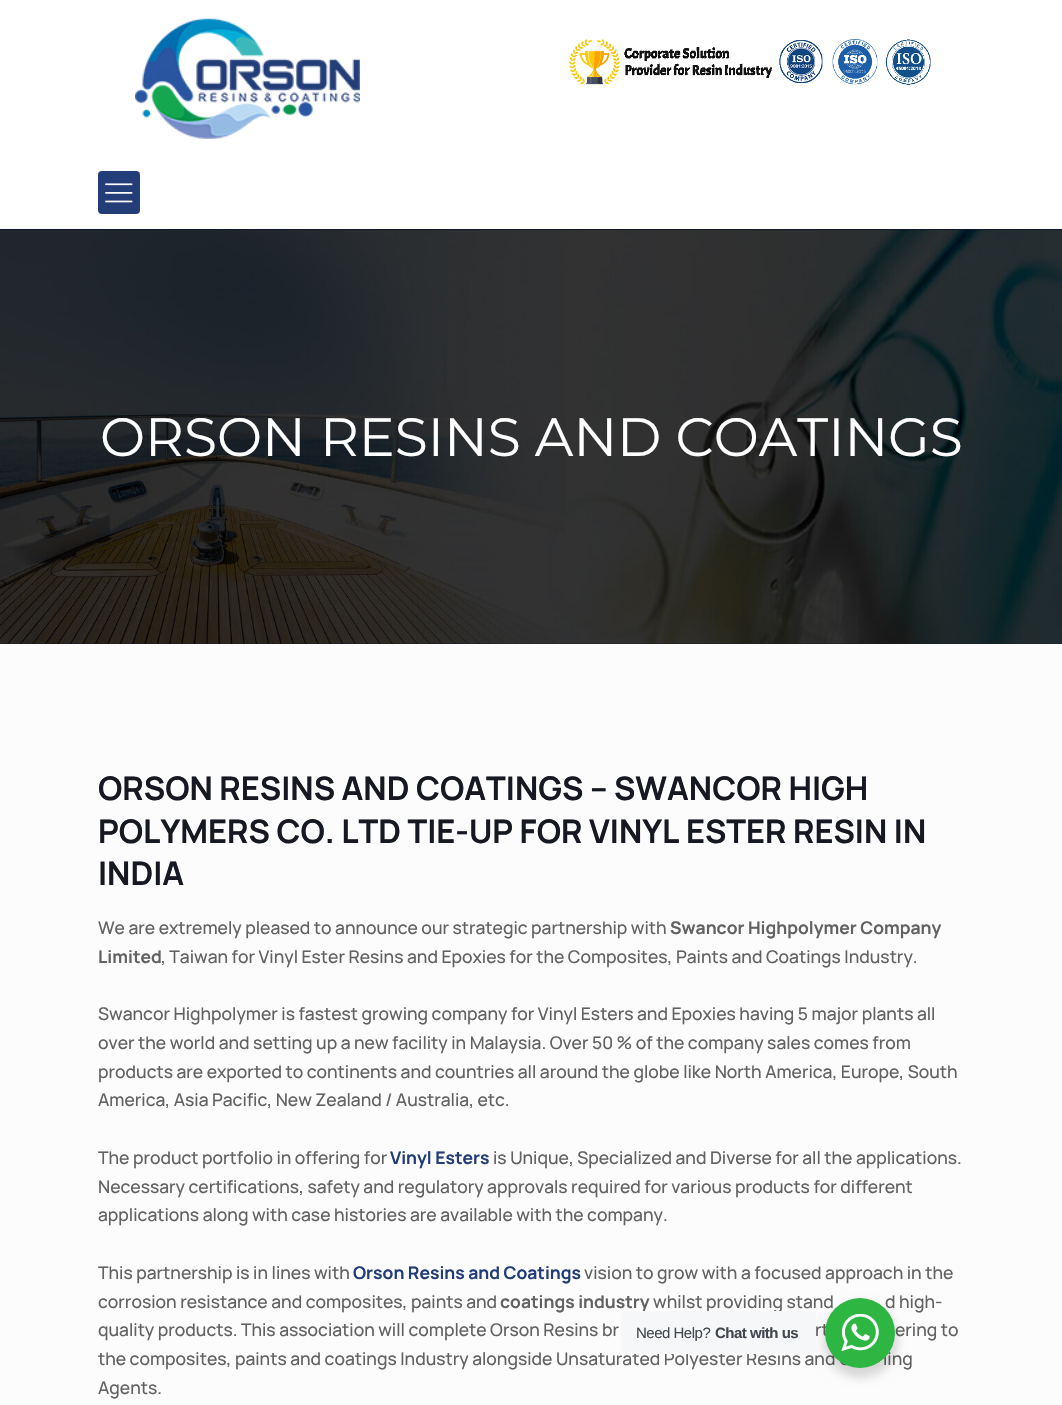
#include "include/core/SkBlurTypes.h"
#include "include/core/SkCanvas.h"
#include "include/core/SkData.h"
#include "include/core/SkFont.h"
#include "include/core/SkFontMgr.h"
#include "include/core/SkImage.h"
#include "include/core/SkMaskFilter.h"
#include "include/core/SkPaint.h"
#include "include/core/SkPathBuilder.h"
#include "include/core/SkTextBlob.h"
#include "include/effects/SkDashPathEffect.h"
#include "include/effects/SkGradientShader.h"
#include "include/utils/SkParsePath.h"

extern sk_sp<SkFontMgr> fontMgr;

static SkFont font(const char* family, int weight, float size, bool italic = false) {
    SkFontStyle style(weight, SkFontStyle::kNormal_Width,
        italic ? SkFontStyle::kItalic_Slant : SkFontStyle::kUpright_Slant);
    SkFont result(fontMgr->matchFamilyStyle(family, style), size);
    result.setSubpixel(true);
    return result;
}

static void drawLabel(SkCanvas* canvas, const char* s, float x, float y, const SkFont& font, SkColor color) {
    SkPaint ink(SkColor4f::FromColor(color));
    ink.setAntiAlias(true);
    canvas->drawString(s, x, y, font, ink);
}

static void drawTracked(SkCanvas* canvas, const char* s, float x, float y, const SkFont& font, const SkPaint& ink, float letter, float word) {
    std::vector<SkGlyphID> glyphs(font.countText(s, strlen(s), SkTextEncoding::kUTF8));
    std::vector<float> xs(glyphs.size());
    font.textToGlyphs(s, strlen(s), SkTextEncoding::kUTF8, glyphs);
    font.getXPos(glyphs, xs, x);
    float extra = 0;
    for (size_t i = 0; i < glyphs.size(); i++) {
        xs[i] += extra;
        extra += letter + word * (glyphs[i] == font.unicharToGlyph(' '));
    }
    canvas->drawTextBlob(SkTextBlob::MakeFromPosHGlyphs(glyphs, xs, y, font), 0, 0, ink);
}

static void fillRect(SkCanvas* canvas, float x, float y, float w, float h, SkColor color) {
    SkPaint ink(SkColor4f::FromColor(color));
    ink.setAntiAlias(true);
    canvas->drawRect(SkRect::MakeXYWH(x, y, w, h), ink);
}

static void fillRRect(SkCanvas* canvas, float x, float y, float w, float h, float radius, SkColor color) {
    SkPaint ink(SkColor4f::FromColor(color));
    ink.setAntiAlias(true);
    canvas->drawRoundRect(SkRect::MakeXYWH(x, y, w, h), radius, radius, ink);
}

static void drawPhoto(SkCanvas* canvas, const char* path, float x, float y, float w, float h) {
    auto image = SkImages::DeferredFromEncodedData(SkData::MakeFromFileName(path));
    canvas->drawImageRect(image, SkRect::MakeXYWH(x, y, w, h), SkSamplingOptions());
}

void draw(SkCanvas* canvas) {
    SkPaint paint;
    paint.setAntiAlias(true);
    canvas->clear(0xFFFCFCFC);
    fillRect(canvas, 0, 229, 1062, 415, 0xFF13162F);
    fillRect(canvas, 0, 0, 1062, 229, 0xFFFFFFFF);
    drawPhoto(canvas, "assets/img1.png", 135, 18, 225, 121);
    drawPhoto(canvas, "assets/img2.png", 568, 39, 363, 46);
    fillRRect(canvas, 98, 171, 42, 43, 4, 0xFF233D78);
    drawPhoto(canvas, "assets/img3.png", 105, 183, 28, 20);
    drawPhoto(canvas, "assets/img4.png", 0, 230, 1062, 414);
    SkFont font1 = font("Montserrat", 400, 53.75f);
    drawLabel(canvas, "ORSON RESINS AND COATINGS", 100, 456, font1, 0xFFFFFFFF);
    SkFont font2 = font("Manrope", 700, 32.5f);
    drawLabel(canvas, "ORSON RESINS AND COATINGS – SWANCOR HIGH", 98, 800, font2, 0xFF161922);
    drawLabel(canvas, "POLYMERS CO. LTD TIE-UP FOR VINYL ESTER RESIN IN", 98, 843, font2, 0xFF161922);
    drawLabel(canvas, "INDIA", 98, 885, font2, 0xFF161922);
    SkFont font3 = font("Manrope", 500, 17.5f);
    drawLabel(canvas, "We are extremely pleased to announce our strategic partnership with", 98, 934, font3, 0xFF626262);
    SkFont font4 = font("Manrope", 700, 17.5f);
    drawLabel(canvas, "Swancor Highpolymer Company", 670, 934, font4, 0xFF626262);
    drawLabel(canvas, "Limited", 98, 963, font4, 0xFF626262);
    drawLabel(canvas, ", Taiwan for Vinyl Ester Resins and Epoxies for the Composites, Paints and Coatings Industry.", 161, 963, font3, 0xFF626262);
    drawLabel(canvas, "Swancor Highpolymer is fastest growing company for Vinyl Esters and Epoxies having 5 major plants all", 98, 1020, font3, 0xFF626262);
    drawLabel(canvas, "over the world and setting up a new facility in Malaysia. Over 50 % of the company sales comes from", 98, 1049, font3, 0xFF626262);
    drawLabel(canvas, "products are exported to continents and countries all around the globe like North America, Europe, South", 98, 1078, font3, 0xFF626262);
    drawLabel(canvas, "America, Asia Pacific, New Zealand / Australia, etc.", 98, 1106, font3, 0xFF626262);
    drawLabel(canvas, "The product portfolio in offering for", 98, 1164, font3, 0xFF626262);
    drawLabel(canvas, "Vinyl Esters", 390, 1164, font4, 0xFF233D78);
    drawLabel(canvas, "is Unique, Specialized and Diverse for all the applications.", 493, 1164, font3, 0xFF626262);
    drawLabel(canvas, "Necessary certifications, safety and regulatory approvals required for various products for different", 98, 1193, font3, 0xFF626262);
    drawLabel(canvas, "applications along with case histories are available with the company.", 98, 1221, font3, 0xFF626262);
    drawLabel(canvas, "This partnership is in lines with", 98, 1279, font3, 0xFF626262);
    drawLabel(canvas, "Orson Resins and Coatings", 353, 1279, font4, 0xFF233D78);
    drawLabel(canvas, "vision to grow with a focused approach in the", 584, 1279, font3, 0xFF626262);
    drawLabel(canvas, "corrosion resistance and composites, paints and", 98, 1308, font3, 0xFF626262);
    drawLabel(canvas, "coatings industry", 500, 1308, font4, 0xFF626262);
    drawLabel(canvas, "whilst providing stand", 653, 1308, font3, 0xFF626262);
    drawLabel(canvas, "d high-", 885, 1308, font3, 0xFF626262);
    drawLabel(canvas, "quality products. This association will complete Orson Resins br", 98, 1336, font3, 0xFF626262);
    drawLabel(canvas, "rt", 815, 1336, font3, 0xFF626262);
    drawLabel(canvas, "ering to", 895, 1336, font3, 0xFF626262);
    drawLabel(canvas, "the composites, paints and coatings Industry alongside Unsaturated Polyester Resins and C", 98, 1365, font3, 0xFF626262);
    drawLabel(canvas, "ling", 883, 1365, font3, 0xFF626262);
    drawLabel(canvas, "Agents.", 98, 1394, font3, 0xFF626262);
    paint.setColor(0x24000000);
    paint.setMaskFilter(SkMaskFilter::MakeBlur(kNormal_SkBlurStyle, 5));
    canvas->drawRoundRect(SkRect::MakeXYWH(823, 1303, 75, 75), 37.5f, 37.5f, paint);
    paint.setMaskFilter(nullptr);
    fillRRect(canvas, 621, 1311, 195, 43, 5, 0xFFF5F7F9);
    SkFont font5 = font("Liberation Sans", 400, 15);
    paint.setColor(0xFF43474E);
    drawTracked(canvas, "Need Help?", 636, 1338, font5, paint, -0.5f, 0);
    SkFont font6 = font("Liberation Sans", 700, 15);
    drawTracked(canvas, "Chat with us", 715, 1338, font6, paint, -0.5f, 0);
    paint.setColor(0xFF2DB742);
    canvas->drawCircle(860, 1333, 35, paint);
    drawPhoto(canvas, "assets/img5.png", 841, 1314, 38, 37);
}
